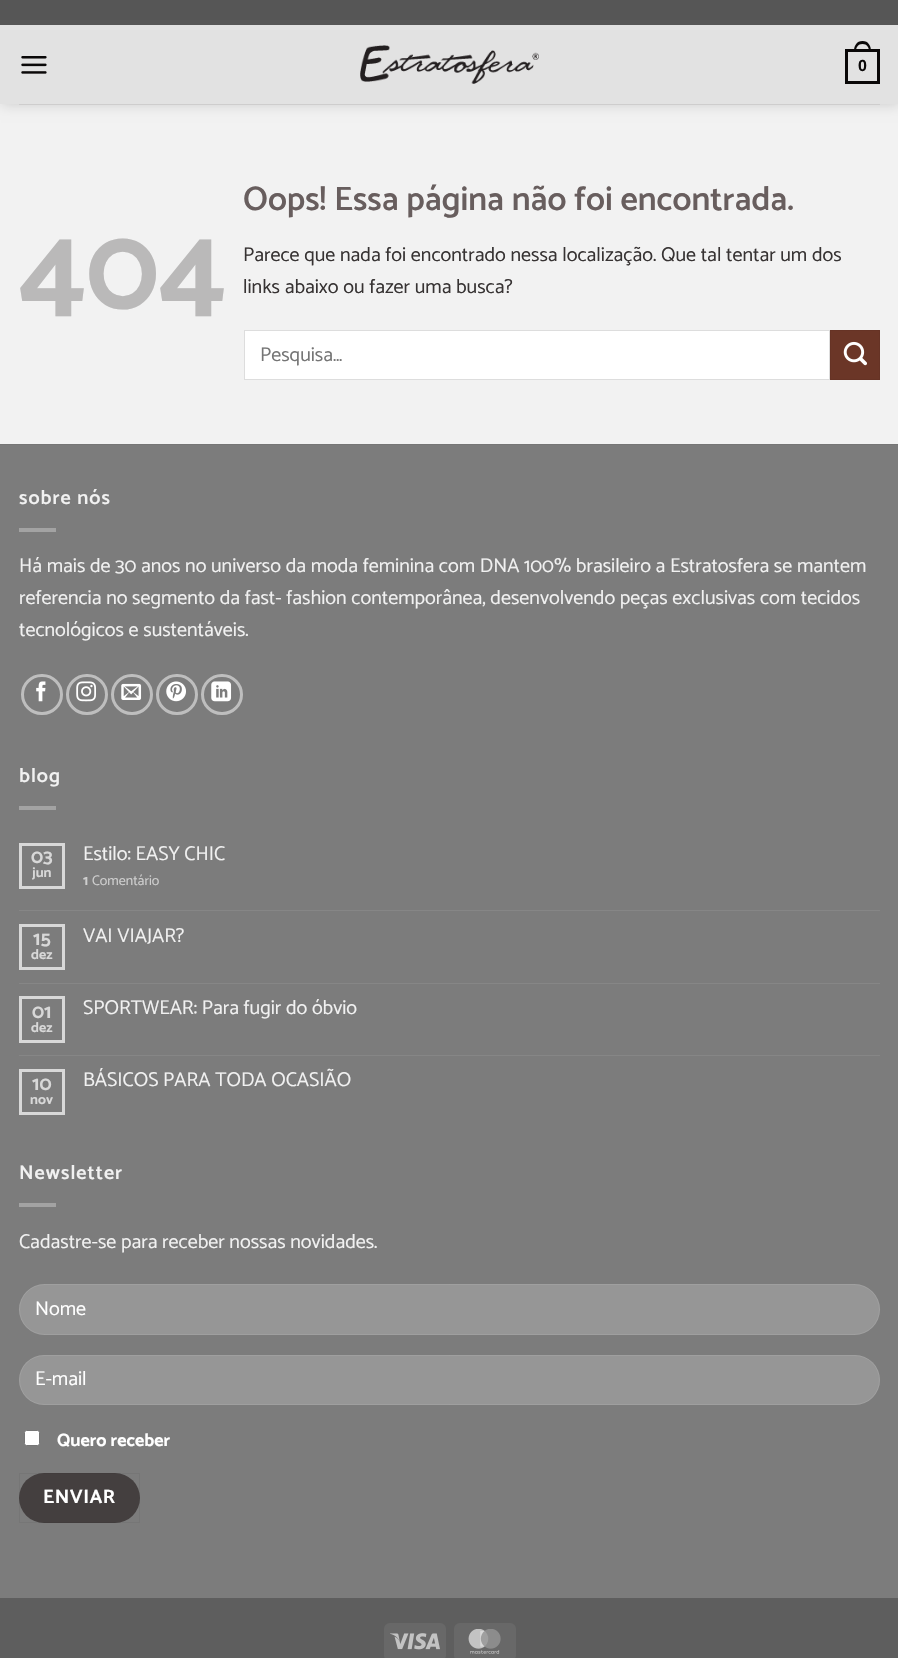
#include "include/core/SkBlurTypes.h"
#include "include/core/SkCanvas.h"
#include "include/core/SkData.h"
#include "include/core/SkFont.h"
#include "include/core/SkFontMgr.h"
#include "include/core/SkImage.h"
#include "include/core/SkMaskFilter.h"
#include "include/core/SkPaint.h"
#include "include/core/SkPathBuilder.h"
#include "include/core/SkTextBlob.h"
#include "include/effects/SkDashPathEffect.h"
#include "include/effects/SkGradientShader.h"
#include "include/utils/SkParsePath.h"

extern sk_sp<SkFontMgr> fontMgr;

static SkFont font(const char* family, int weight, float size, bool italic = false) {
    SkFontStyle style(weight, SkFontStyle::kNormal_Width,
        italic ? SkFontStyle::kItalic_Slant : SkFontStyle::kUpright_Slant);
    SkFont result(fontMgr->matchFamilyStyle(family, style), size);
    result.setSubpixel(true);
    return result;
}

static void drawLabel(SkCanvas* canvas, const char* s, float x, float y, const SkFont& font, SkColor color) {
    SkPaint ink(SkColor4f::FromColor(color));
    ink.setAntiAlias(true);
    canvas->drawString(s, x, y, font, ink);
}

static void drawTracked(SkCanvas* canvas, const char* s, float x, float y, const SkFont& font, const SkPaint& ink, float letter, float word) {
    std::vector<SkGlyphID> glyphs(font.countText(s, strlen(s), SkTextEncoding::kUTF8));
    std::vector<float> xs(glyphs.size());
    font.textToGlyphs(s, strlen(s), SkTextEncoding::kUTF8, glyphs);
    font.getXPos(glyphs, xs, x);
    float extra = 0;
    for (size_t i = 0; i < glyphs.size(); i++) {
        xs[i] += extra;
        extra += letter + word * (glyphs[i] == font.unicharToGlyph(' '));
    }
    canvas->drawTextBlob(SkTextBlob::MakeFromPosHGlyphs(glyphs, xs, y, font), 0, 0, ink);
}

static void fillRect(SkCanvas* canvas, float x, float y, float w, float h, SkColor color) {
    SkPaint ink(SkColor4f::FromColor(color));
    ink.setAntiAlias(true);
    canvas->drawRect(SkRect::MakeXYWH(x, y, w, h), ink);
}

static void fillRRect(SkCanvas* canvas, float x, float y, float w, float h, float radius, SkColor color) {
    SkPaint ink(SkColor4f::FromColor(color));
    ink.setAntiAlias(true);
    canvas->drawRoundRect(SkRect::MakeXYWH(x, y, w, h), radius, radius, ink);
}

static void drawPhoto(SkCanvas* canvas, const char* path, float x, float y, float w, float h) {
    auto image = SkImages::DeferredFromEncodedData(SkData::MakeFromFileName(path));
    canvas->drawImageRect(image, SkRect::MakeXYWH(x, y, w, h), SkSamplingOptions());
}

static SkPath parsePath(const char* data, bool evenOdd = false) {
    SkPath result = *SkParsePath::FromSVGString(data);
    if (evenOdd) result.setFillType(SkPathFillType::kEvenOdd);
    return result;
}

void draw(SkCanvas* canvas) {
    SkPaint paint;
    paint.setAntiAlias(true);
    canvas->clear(0xFFF2F2F2);
    paint.setColor(0x26000000);
    paint.setMaskFilter(SkMaskFilter::MakeBlur(kNormal_SkBlurStyle, 6));
    canvas->drawRect(SkRect::MakeXYWH(1, 1, 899, 104), paint);
    paint.setMaskFilter(nullptr);
    fillRect(canvas, 0, 0, 898, 25, 0xFF565656);
    fillRect(canvas, 0, 25, 898, 79, 0xFFE2E2E2);
    drawPhoto(canvas, "assets/img1.png", 21, 56, 26, 18);
    drawPhoto(canvas, "assets/img2.png", 360, 45, 179, 39);
    paint.setStroke(true);
    paint.setStrokeWidth(3);
    paint.setColor(0xFF0A0808);
    canvas->drawRect(SkRect::MakeXYWH(846.5f, 50.5f, 32, 32), paint);
    paint.setStroke(false);
    canvas->drawPath(parsePath("M862.5 41C868.5 41 871 46 871 51H854C854 46 856.5 41 862.5 41ZM862.5 44C867 44 869 47.5 869 51H856C856 47.5 858 44 862.5 44Z", true), paint);
    SkFont font1 = font("Liberation Sans", 700, 16);
    drawLabel(canvas, "0", 858, 71, font1, 0xFF0A0808);
    fillRect(canvas, 19, 104, 861, 1, 0xFFCECDCD);
    SkFont font2 = font("Catamaran", 700, 120);
    drawLabel(canvas, "404", 19, 308, font2, 0xFFBAB9B9);
    SkFont font3 = font("Catamaran", 600, 34);
    drawLabel(canvas, "Oops! Essa página não foi encontrada.", 243, 210, font3, 0xFF685E5E);
    SkFont font4 = font("Catamaran", 400, 20);
    drawLabel(canvas, "Parece que nada foi encontrado nessa localização. Que tal tentar um dos", 243, 261, font4, 0xFF373333);
    drawLabel(canvas, "links abaixo ou fazer uma busca?", 243, 293, font4, 0xFF373333);
    paint.setColor(0xFFFFFFFF);
    canvas->drawRect(SkRect::MakeXYWH(244.5f, 330.5f, 585, 49), paint);
    paint.setStroke(true);
    paint.setStrokeWidth(1);
    paint.setColor(0xFFDDDDDD);
    canvas->drawRect(SkRect::MakeXYWH(244.5f, 330.5f, 585, 49), paint);
    drawLabel(canvas, "Pesquisa…", 260, 361, font4, 0xFF757575);
    paint.setStroke(false);
    paint.setColor(0xFF6B3627);
    canvas->drawRect(SkRect::MakeXYWH(830.5f, 330.5f, 49, 49), paint);
    paint.setStroke(true);
    paint.setColor(0xFF663325);
    canvas->drawRect(SkRect::MakeXYWH(830.5f, 330.5f, 49, 49), paint);
    drawPhoto(canvas, "assets/img3.png", 843, 341, 24, 25);
    fillRect(canvas, 0, 445, 898, 1153, 0xFF7C7C7C);
    fillRect(canvas, 0, 444, 898, 1, 0xFF767676);
    SkFont font5 = font("Catamaran", 600, 20);
    paint.setStroke(false);
    paint.setColor(0xFFF1F1F1);
    drawTracked(canvas, "sobre nós", 19, 504, font5, paint, 1, 0);
    fillRect(canvas, 19, 528, 37, 4, 0xFFA3A3A3);
    drawLabel(canvas, "Há mais de 30 anos no universo da moda feminina com DNA 100% brasileiro a Estratosfera se mantem", 19, 572, font4, 0xFFF1F1F1);
    drawLabel(canvas, "referencia no segmento da fast- fashion contemporânea, desenvolvendo peças exclusivas com tecidos", 19, 604, font4, 0xFFF1F1F1);
    drawLabel(canvas, "tecnológicos e sustentáveis.", 19, 636, font4, 0xFFF1F1F1);
    paint.setStroke(true);
    paint.setStrokeWidth(3);
    paint.setColor(0xFFBEBEBE);
    canvas->drawRoundRect(SkRect::MakeXYWH(22.5f, 675.5f, 39, 38), 19, 19, paint);
    drawPhoto(canvas, "assets/img4.png", 36, 681, 10, 21);
    canvas->drawRoundRect(SkRect::MakeXYWH(67.5f, 675.5f, 39, 38), 19, 19, paint);
    drawPhoto(canvas, "assets/img5.png", 76, 681, 20, 21);
    canvas->drawRoundRect(SkRect::MakeXYWH(112.5f, 675.5f, 39, 38), 19, 19, paint);
    drawPhoto(canvas, "assets/img6.png", 121, 683, 21, 17);
    canvas->drawRoundRect(SkRect::MakeXYWH(157.5f, 675.5f, 39, 38), 19, 19, paint);
    drawPhoto(canvas, "assets/img7.png", 166, 681, 20, 21);
    canvas->drawRoundRect(SkRect::MakeXYWH(202.5f, 675.5f, 39, 38), 19, 19, paint);
    drawPhoto(canvas, "assets/img8.png", 211, 681, 21, 21);
    paint.setStroke(false);
    paint.setColor(0xFFF1F1F1);
    drawTracked(canvas, "blog", 19, 782, font5, paint, 1, 0);
    fillRect(canvas, 19, 806, 37, 4, 0xFFA3A3A3);
    paint.setStroke(true);
    paint.setColor(0xFFD8D8D8);
    canvas->drawRect(SkRect::MakeXYWH(20.5f, 844.5f, 43, 43), paint);
    SkFont font6 = font("Catamaran", 700, 20);
    drawLabel(canvas, "03", 31, 863, font6, 0xFFD8D8D8);
    SkFont font7 = font("Catamaran", 700, 14);
    drawLabel(canvas, "jun", 32, 877, font7, 0xFFD8D8D8);
    drawLabel(canvas, "Estilo: EASY CHIC", 83, 860, font4, 0xFFF1F1F1);
    drawLabel(canvas, "1", 83, 885, font7, 0xFFCECECE);
    SkFont font8 = font("Catamaran", 400, 14);
    drawLabel(canvas, "Comentário", 92, 885, font8, 0xFFCECECE);
    fillRect(canvas, 19, 910, 861, 1, 0xFF868686);
    canvas->drawRect(SkRect::MakeXYWH(20.5f, 925.5f, 43, 43), paint);
    drawLabel(canvas, "15", 33, 945, font6, 0xFFD8D8D8);
    drawLabel(canvas, "dez", 31, 959, font7, 0xFFD8D8D8);
    drawLabel(canvas, "VAI VIAJAR?", 83, 942, font4, 0xFFF1F1F1);
    fillRect(canvas, 19, 983, 861, 1, 0xFF868686);
    canvas->drawRect(SkRect::MakeXYWH(20.5f, 997.5f, 43, 44), paint);
    drawLabel(canvas, "01", 32, 1018, font6, 0xFFD8D8D8);
    drawLabel(canvas, "dez", 31, 1032, font7, 0xFFD8D8D8);
    drawLabel(canvas, "SPORTWEAR: Para fugir do óbvio", 83, 1014, font4, 0xFFF1F1F1);
    fillRect(canvas, 19, 1055, 861, 1, 0xFF868686);
    canvas->drawRect(SkRect::MakeXYWH(20.5f, 1070.5f, 43, 43), paint);
    drawLabel(canvas, "10", 32, 1090, font6, 0xFFD8D8D8);
    drawLabel(canvas, "nov", 30, 1104, font7, 0xFFD8D8D8);
    drawLabel(canvas, "BÁSICOS PARA TODA OCASIÃO", 83, 1086, font4, 0xFFF1F1F1);
    paint.setStroke(false);
    paint.setColor(0xFFF1F1F1);
    drawTracked(canvas, "Newsletter", 19, 1179, font5, paint, 1, 0);
    fillRect(canvas, 19, 1203, 37, 4, 0xFFA3A3A3);
    drawLabel(canvas, "Cadastre-se para receber nossas novidades.", 19, 1248, font4, 0xFFF1F1F1);
    fillRRect(canvas, 19, 1284, 861, 51, 25.5f, 0xFF969696);
    paint.setStroke(true);
    paint.setStrokeWidth(1);
    paint.setColor(0x17FFFFFF);
    canvas->drawRoundRect(SkRect::MakeXYWH(19.5f, 1284.5f, 860, 50), 25, 25, paint);
    drawLabel(canvas, "Nome", 35, 1315, font4, 0xFFFFFFFF);
    fillRRect(canvas, 19, 1355, 861, 50, 25, 0xFF969696);
    canvas->drawRoundRect(SkRect::MakeXYWH(19.5f, 1355.5f, 860, 49), 24.5f, 24.5f, paint);
    drawLabel(canvas, "E-mail", 35, 1385, font4, 0xFFFFFFFF);
    paint.setStroke(false);
    paint.setColor(0xFFFFFFFF);
    canvas->drawRoundRect(SkRect::MakeXYWH(24.5f, 1430.5f, 15, 15), 2, 2, paint);
    paint.setStroke(true);
    paint.setColor(0xFF767676);
    canvas->drawRoundRect(SkRect::MakeXYWH(24.5f, 1430.5f, 15, 15), 2, 2, paint);
    SkFont font9 = font("Catamaran", 700, 18);
    drawLabel(canvas, "Quero receber", 57, 1446, font9, 0xFFFFFFFF);
    fillRRect(canvas, 19, 1473, 121, 50, 25, 0xFF443F3F);
    paint.setColor(0x0D000000);
    canvas->drawRect(SkRect::MakeXYWH(19.5f, 1473.5f, 120, 49), paint);
    SkFont font10 = font("Catamaran", 700, 19.5f);
    paint.setStroke(false);
    paint.setColor(0xFFFFFFFF);
    drawTracked(canvas, "ENVIAR", 43, 1503, font10, paint, 0.5f, 0);
    fillRect(canvas, 0, 1598, 898, 60, 0xFF5E5E5E);
    fillRRect(canvas, 384, 1623, 62, 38, 6, 0xFF686868);
    drawPhoto(canvas, "assets/img9.png", 390, 1633, 50, 17);
    fillRRect(canvas, 454, 1623, 62, 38, 6, 0xFF686868);
    drawPhoto(canvas, "assets/img10.png", 468, 1629, 33, 25);
}
